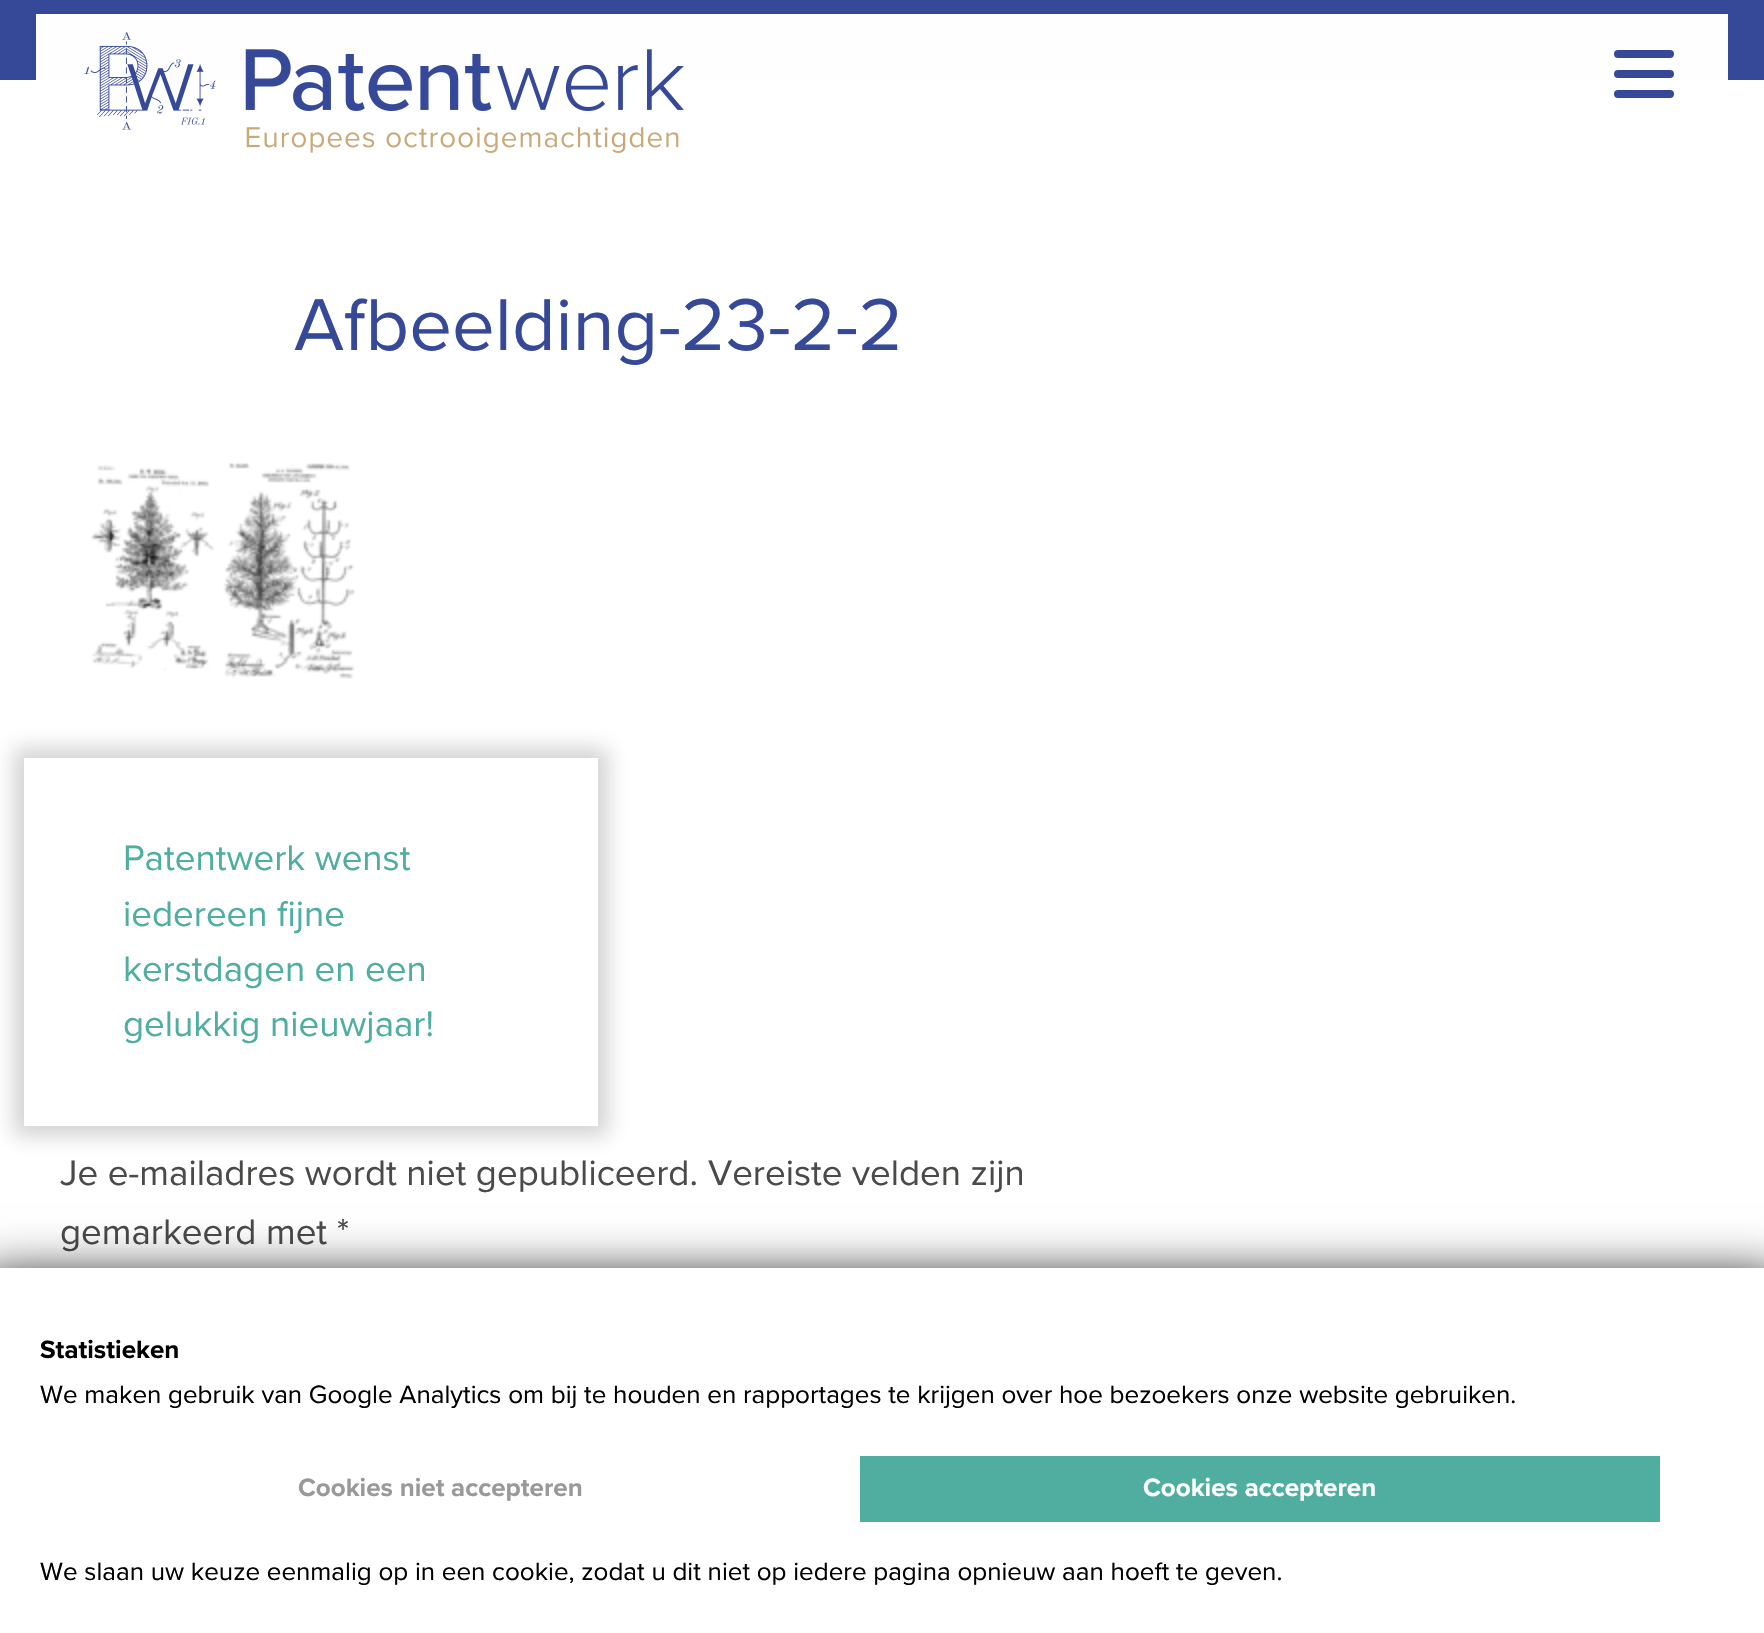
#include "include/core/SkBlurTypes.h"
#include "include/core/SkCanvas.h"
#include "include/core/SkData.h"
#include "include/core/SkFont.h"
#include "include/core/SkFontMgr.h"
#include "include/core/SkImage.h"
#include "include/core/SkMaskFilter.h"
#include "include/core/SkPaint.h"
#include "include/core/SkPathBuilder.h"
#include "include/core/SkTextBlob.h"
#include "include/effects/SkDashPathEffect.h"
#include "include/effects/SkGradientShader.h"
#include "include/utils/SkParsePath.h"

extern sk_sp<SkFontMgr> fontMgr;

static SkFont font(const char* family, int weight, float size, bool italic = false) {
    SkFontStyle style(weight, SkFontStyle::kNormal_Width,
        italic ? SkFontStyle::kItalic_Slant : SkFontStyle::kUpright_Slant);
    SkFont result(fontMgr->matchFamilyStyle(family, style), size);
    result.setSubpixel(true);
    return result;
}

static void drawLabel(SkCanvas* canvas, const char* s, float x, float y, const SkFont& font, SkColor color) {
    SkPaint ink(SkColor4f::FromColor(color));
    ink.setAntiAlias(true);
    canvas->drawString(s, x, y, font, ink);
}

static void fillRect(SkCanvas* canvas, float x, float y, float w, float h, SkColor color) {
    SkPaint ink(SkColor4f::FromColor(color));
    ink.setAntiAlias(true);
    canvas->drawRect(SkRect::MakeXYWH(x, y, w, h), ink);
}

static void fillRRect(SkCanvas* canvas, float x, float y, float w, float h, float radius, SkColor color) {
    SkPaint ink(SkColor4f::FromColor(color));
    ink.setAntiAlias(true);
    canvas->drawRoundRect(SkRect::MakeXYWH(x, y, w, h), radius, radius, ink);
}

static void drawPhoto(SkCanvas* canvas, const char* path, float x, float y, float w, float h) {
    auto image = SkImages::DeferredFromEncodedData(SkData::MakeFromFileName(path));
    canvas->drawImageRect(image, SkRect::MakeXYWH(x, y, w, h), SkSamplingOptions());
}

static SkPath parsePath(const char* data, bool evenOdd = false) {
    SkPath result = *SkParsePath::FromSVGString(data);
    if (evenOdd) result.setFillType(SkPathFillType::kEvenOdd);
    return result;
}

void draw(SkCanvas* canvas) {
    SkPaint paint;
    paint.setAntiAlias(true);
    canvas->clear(0xFFFFFFFF);
    fillRect(canvas, 0, 0, 1764, 80, 0xFF364998);
    fillRect(canvas, 36, 14, 1692, 66, 0xFFFEFEFE);
    drawPhoto(canvas, "assets/img1.png", 84, 32, 600, 121);
    fillRRect(canvas, 1614, 50, 60, 8, 4, 0xFF364998);
    fillRRect(canvas, 1614, 70, 60, 8, 4, 0xFF364998);
    fillRRect(canvas, 1614, 90, 60, 8, 4, 0xFF364998);
    SkFont font1 = font("Proxima Nova", 400, 76);
    drawLabel(canvas, "Afbeelding-23-2-2", 294, 350, font1, 0xFF364998);
    drawPhoto(canvas, "assets/img2.png", 91, 462, 264, 217);
    canvas->save();
    canvas->clipPath(parsePath("M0 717H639V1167H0ZM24 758H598V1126H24Z", true), true);
    paint.setColor(0x331D1D1C);
    paint.setMaskFilter(SkMaskFilter::MakeBlur(kNormal_SkBlurStyle, 10));
    canvas->drawRect(SkRect::MakeXYWH(14, 748, 594, 388), paint);
    paint.setMaskFilter(nullptr);
    canvas->restore();
    SkFont font2 = font("Proxima Nova", 400, 36.75f);
    drawLabel(canvas, "Patentwerk wenst", 123, 870, font2, 0xFF4FAE9F);
    drawLabel(canvas, "iedereen fijne", 123, 926, font2, 0xFF4FAE9F);
    drawLabel(canvas, "kerstdagen en een", 123, 981, font2, 0xFF4FAE9F);
    drawLabel(canvas, "gelukkig nieuwjaar!", 123, 1036, font2, 0xFF4FAE9F);
    drawLabel(canvas, "Je e-mailadres wordt niet gepubliceerd.", 60, 1185, font2, 0xFF4A4A49);
    drawLabel(canvas, "Vereiste velden zijn", 708, 1185, font2, 0xFF4A4A49);
    drawLabel(canvas, "gemarkeerd met *", 60, 1244, font2, 0xFF4A4A49);
    paint.setColor(0xFF000000);
    paint.setMaskFilter(SkMaskFilter::MakeBlur(kNormal_SkBlurStyle, 25));
    canvas->drawRect(SkRect::MakeXYWH(-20, 1278, 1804, 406), paint);
    paint.setMaskFilter(nullptr);
    fillRect(canvas, 0, 1268, 1764, 365, 0xFFFFFFFF);
    SkFont font3 = font("Proxima Nova", 700, 26);
    drawLabel(canvas, "Statistieken", 40, 1358, font3, 0xFF000000);
    SkFont font4 = font("Proxima Nova", 400, 26);
    drawLabel(canvas, "We maken gebruik van Google Analytics om bij te houden en rapportages te krijgen over hoe bezoekers onze website gebruiken.", 40, 1403, font4, 0xFF000000);
    drawLabel(canvas, "Cookies niet accepteren", 298, 1496, font3, 0xFF999999);
    fillRect(canvas, 860, 1456, 800, 66, 0xFF4FAE9F);
    drawLabel(canvas, "Cookies accepteren", 1143, 1496, font3, 0xFFFFFFFF);
    drawLabel(canvas, "We slaan uw keuze eenmalig op in een cookie, zodat u dit niet op iedere pagina opnieuw aan hoeft te geven.", 40, 1580, font4, 0xFF000000);
}
